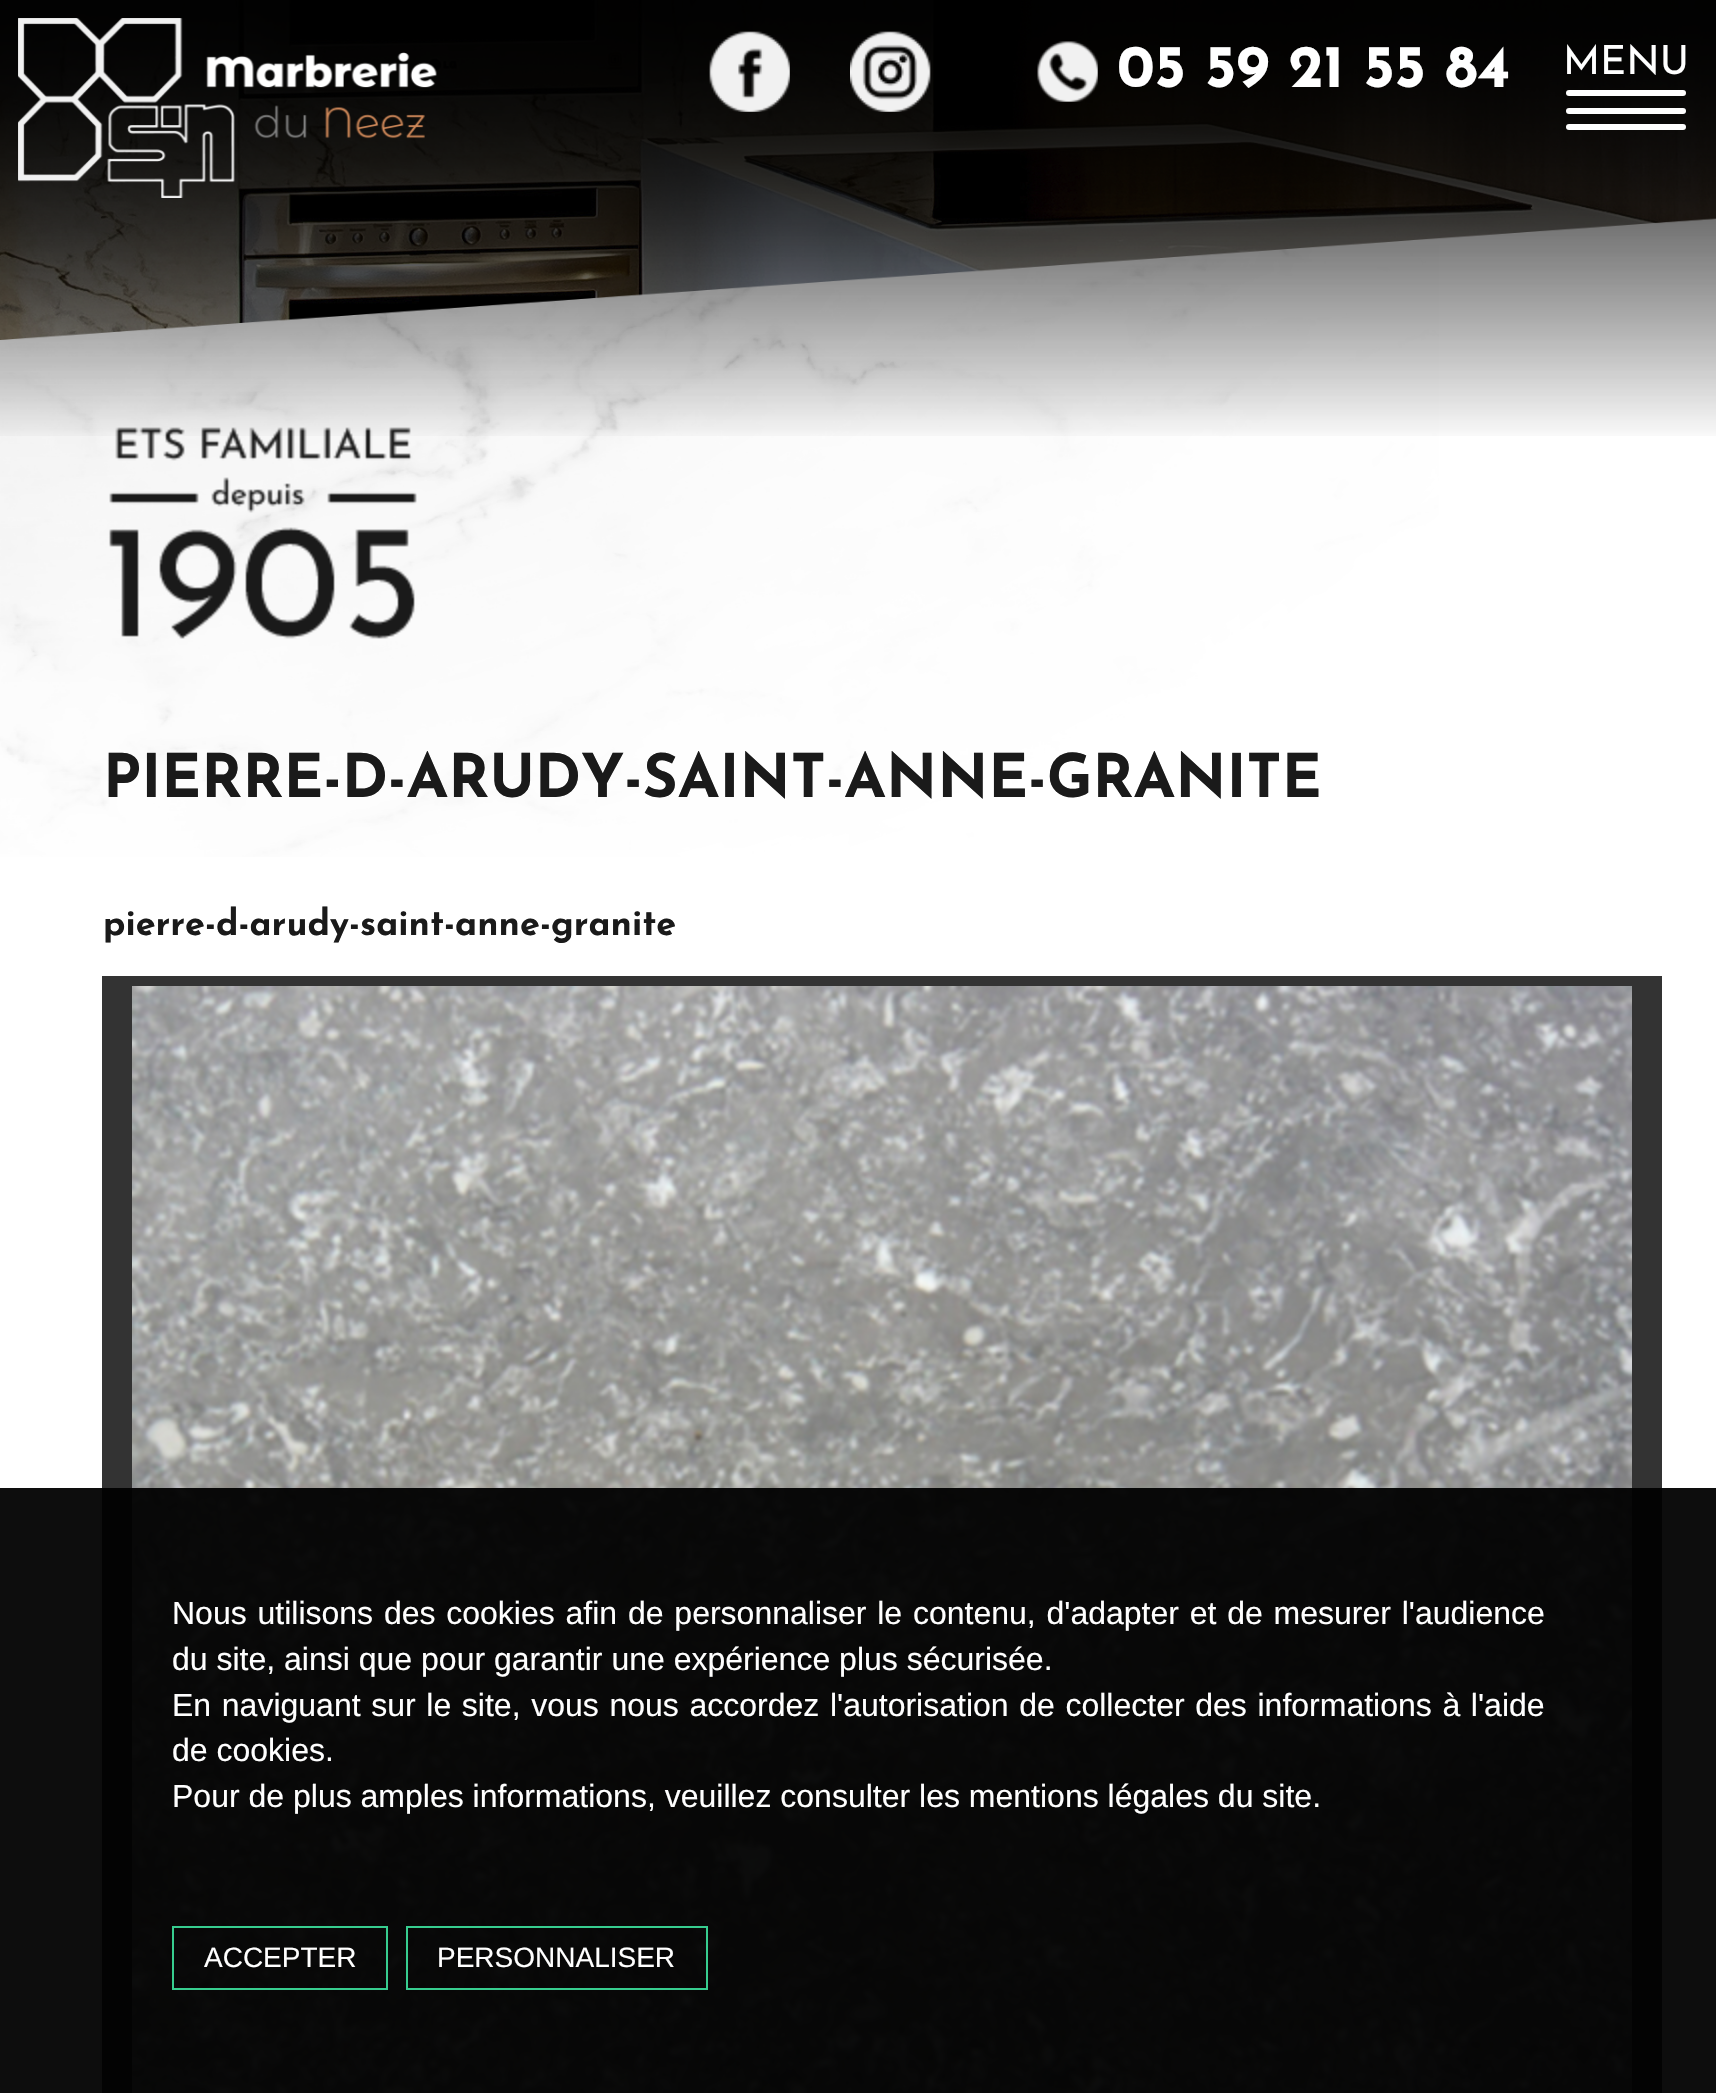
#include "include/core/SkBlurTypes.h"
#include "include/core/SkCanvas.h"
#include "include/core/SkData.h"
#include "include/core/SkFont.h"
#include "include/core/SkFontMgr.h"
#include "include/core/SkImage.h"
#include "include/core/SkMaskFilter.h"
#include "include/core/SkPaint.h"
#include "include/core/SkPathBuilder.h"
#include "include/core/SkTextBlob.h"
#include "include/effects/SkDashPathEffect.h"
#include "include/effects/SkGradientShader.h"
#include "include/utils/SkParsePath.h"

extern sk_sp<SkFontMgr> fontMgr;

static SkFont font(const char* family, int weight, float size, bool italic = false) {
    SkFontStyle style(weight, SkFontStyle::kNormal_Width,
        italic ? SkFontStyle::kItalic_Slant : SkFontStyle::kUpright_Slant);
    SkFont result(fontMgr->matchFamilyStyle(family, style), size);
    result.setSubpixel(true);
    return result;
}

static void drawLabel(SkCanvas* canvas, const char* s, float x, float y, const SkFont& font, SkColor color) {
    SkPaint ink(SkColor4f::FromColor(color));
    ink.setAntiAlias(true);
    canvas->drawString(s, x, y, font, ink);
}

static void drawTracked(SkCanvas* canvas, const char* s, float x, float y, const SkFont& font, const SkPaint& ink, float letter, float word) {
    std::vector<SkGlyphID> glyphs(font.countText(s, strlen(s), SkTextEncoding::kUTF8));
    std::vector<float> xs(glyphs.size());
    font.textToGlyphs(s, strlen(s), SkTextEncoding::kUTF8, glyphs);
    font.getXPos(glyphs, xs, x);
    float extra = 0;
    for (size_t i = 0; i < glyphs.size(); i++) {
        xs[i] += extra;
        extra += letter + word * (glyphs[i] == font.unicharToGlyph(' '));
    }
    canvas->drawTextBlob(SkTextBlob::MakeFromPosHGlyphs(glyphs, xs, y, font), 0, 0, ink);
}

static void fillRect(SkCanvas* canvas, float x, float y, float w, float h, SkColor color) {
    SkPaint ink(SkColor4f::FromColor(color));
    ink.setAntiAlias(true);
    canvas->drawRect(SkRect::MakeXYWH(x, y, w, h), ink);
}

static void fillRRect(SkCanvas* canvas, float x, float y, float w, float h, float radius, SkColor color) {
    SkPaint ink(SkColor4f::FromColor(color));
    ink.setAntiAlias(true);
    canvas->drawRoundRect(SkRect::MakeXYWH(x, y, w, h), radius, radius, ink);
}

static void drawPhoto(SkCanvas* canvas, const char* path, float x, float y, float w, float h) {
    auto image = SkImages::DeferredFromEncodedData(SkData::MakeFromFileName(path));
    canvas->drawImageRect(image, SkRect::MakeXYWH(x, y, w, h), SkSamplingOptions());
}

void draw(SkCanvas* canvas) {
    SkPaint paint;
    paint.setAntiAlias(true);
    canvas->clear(0xFFFFFFFF);
    drawPhoto(canvas, "assets/img7.png", 0, 238, 1439, 619);
    drawPhoto(canvas, "assets/img1.png", 0, 0, 1716, 340);
    drawPhoto(canvas, "assets/img8.png", 109, 427, 308, 212);
    drawPhoto(canvas, "assets/img5.png", 0, 0, 1716, 436);
    drawPhoto(canvas, "assets/img2.png", 709, 31, 81, 81);
    drawPhoto(canvas, "assets/img3.png", 850, 31, 81, 81);
    drawPhoto(canvas, "assets/img4.png", 1037, 41, 61, 61);
    SkFont font1 = font("Josefin Sans", 700, 60);
    drawLabel(canvas, "05 59 21 55 84", 1117, 87, font1, 0xFFFFFFFF);
    drawPhoto(canvas, "assets/img6.png", 18, 18, 419, 180);
    SkFont font2 = font("Josefin Sans", 400, 40);
    drawLabel(canvas, "MENU", 1563, 74, font2, 0xFFFFFFFF);
    fillRRect(canvas, 1566, 90, 120, 6, 3, 0xFFFFFFFF);
    fillRRect(canvas, 1566, 108, 120, 6, 3, 0xFFFFFFFF);
    fillRRect(canvas, 1566, 124, 120, 6, 3, 0xFFFFFFFF);
    drawLabel(canvas, "PIERRE-D-ARUDY-SAINT-ANNE-GRANITE", 103, 797, font1, 0xFF1A1A1A);
    SkFont font3 = font("Josefin Sans", 700, 36);
    drawLabel(canvas, "pierre-d-arudy-saint-anne-granite", 103, 935, font3, 0xFF1A1A1A);
    fillRect(canvas, 102, 976, 1560, 1117, 0xFF333333);
    drawPhoto(canvas, "assets/img9.png", 132, 986, 1500, 1107);
    fillRect(canvas, 0, 1488, 1716, 605, 0xF2000000);
    SkFont font4 = font("Liberation Sans", 400, 32);
    paint.setColor(0xFFFFFFFF);
    drawTracked(canvas, "Nous utilisons des cookies afin de personnaliser le contenu, d'adapter et de mesurer l'audience", 172, 1624, font4, paint, 0, 1.9f);
    drawLabel(canvas, "du site, ainsi que pour garantir une expérience plus sécurisée.", 172, 1670, font4, 0xFFFFFFFF);
    drawTracked(canvas, "En naviguant sur le site, vous nous accordez l'autorisation de collecter des informations à l'aide", 172, 1716, font4, paint, 0, 1.75f);
    drawLabel(canvas, "de cookies.", 172, 1761, font4, 0xFFFFFFFF);
    drawLabel(canvas, "Pour de plus amples informations, veuillez consulter les mentions légales du site.", 172, 1807, font4, 0xFFFFFFFF);
    paint.setStroke(true);
    paint.setStrokeWidth(2);
    paint.setColor(0xFF37CD8F);
    canvas->drawRect(SkRect::MakeXYWH(173, 1927, 214, 62), paint);
    SkFont font5 = font("Liberation Sans", 400, 28);
    drawLabel(canvas, "ACCEPTER", 204, 1967, font5, 0xFFFFFFFF);
    canvas->drawRect(SkRect::MakeXYWH(407, 1927, 300, 62), paint);
    drawLabel(canvas, "PERSONNALISER", 437, 1967, font5, 0xFFFFFFFF);
}
